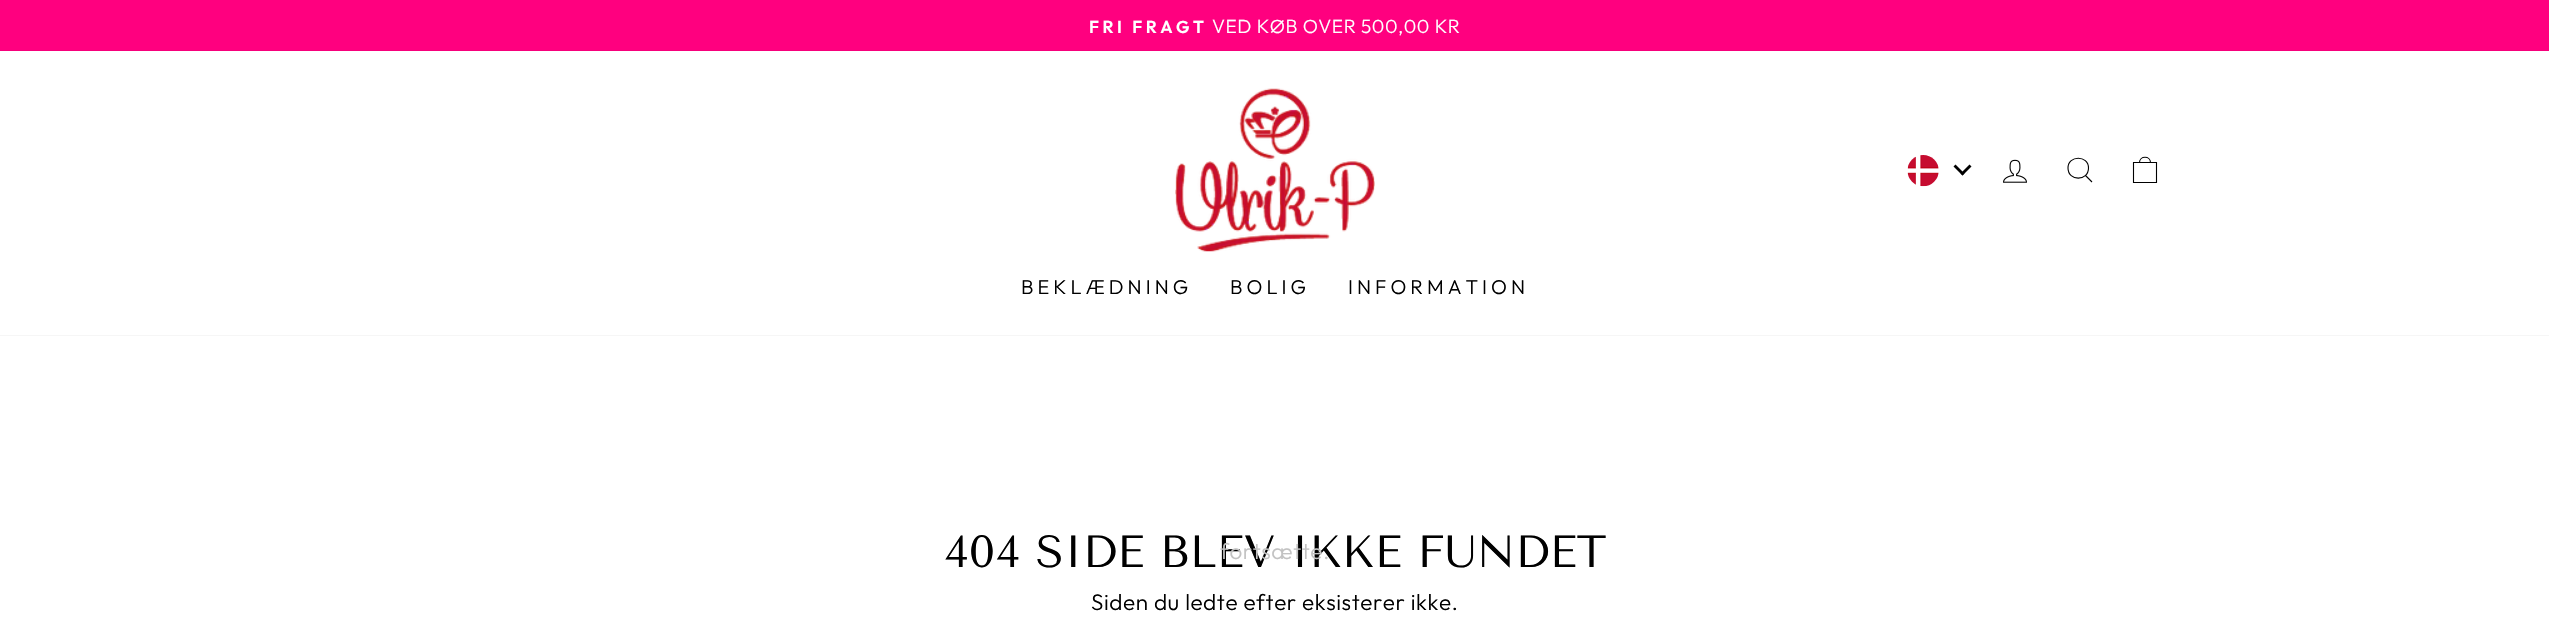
#include "include/core/SkBlurTypes.h"
#include "include/core/SkCanvas.h"
#include "include/core/SkData.h"
#include "include/core/SkFont.h"
#include "include/core/SkFontMgr.h"
#include "include/core/SkImage.h"
#include "include/core/SkMaskFilter.h"
#include "include/core/SkPaint.h"
#include "include/core/SkPathBuilder.h"
#include "include/core/SkTextBlob.h"
#include "include/effects/SkDashPathEffect.h"
#include "include/effects/SkGradientShader.h"
#include "include/utils/SkParsePath.h"

extern sk_sp<SkFontMgr> fontMgr;

static SkFont font(const char* family, int weight, float size, bool italic = false) {
    SkFontStyle style(weight, SkFontStyle::kNormal_Width,
        italic ? SkFontStyle::kItalic_Slant : SkFontStyle::kUpright_Slant);
    SkFont result(fontMgr->matchFamilyStyle(family, style), size);
    result.setSubpixel(true);
    return result;
}

static void drawLabel(SkCanvas* canvas, const char* s, float x, float y, const SkFont& font, SkColor color) {
    SkPaint ink(SkColor4f::FromColor(color));
    ink.setAntiAlias(true);
    canvas->drawString(s, x, y, font, ink);
}

static void drawTracked(SkCanvas* canvas, const char* s, float x, float y, const SkFont& font, const SkPaint& ink, float letter, float word) {
    std::vector<SkGlyphID> glyphs(font.countText(s, strlen(s), SkTextEncoding::kUTF8));
    std::vector<float> xs(glyphs.size());
    font.textToGlyphs(s, strlen(s), SkTextEncoding::kUTF8, glyphs);
    font.getXPos(glyphs, xs, x);
    float extra = 0;
    for (size_t i = 0; i < glyphs.size(); i++) {
        xs[i] += extra;
        extra += letter + word * (glyphs[i] == font.unicharToGlyph(' '));
    }
    canvas->drawTextBlob(SkTextBlob::MakeFromPosHGlyphs(glyphs, xs, y, font), 0, 0, ink);
}

static void fillRect(SkCanvas* canvas, float x, float y, float w, float h, SkColor color) {
    SkPaint ink(SkColor4f::FromColor(color));
    ink.setAntiAlias(true);
    canvas->drawRect(SkRect::MakeXYWH(x, y, w, h), ink);
}

static void drawPhoto(SkCanvas* canvas, const char* path, float x, float y, float w, float h) {
    auto image = SkImages::DeferredFromEncodedData(SkData::MakeFromFileName(path));
    canvas->drawImageRect(image, SkRect::MakeXYWH(x, y, w, h), SkSamplingOptions());
}

static SkPath parsePath(const char* data, bool evenOdd = false) {
    SkPath result = *SkParsePath::FromSVGString(data);
    if (evenOdd) result.setFillType(SkPathFillType::kEvenOdd);
    return result;
}

void draw(SkCanvas* canvas) {
    SkPaint paint;
    paint.setAntiAlias(true);
    canvas->clear(0xFFFFFFFF);
    fillRect(canvas, 0, 0, 2549, 51, 0xFFFF007F);
    SkFont font1 = font("Outfit", 600, 17.25f);
    paint.setColor(0xFFFFFFFF);
    drawTracked(canvas, "FRI FRAGT", 1089, 33, font1, paint, 3.5f, 0);
    SkFont font2 = font("Outfit", 300, 19.1f);
    drawTracked(canvas, "VED KØB OVER 500,00 KR", 1212, 33, font2, paint, 0.55f, 0);
    paint.setColor(0x33000000);
    paint.setMaskFilter(SkMaskFilter::MakeBlur(kNormal_SkBlurStyle, 0.5f));
    canvas->drawRect(SkRect::MakeXYWH(0, 51, 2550, 284), paint);
    paint.setMaskFilter(nullptr);
    fillRect(canvas, 0, 51, 2549, 284, 0xFFFFFFFF);
    drawPhoto(canvas, "assets/img1.png", 1175, 88, 200, 164);
    drawPhoto(canvas, "assets/img2.png", 1907, 155, 32, 32);
    paint.setColor(0xFF000000);
    canvas->drawPath(parsePath("M1969.5 164.5L1971.5 166.5L1962.5 175.5L1960.5 173.5Z"), paint);
    canvas->drawPath(parsePath("M1955.5 164.5L1964.5 173.5L1962.5 175.5L1953.5 166.5Z"), paint);
    drawPhoto(canvas, "assets/img3.png", 2003, 159, 24, 24);
    paint.setStroke(true);
    paint.setStrokeWidth(1.1f);
    canvas->drawPath(parsePath("M2088.5 168C2088.5 181.5 2068 181.5 2068 168C2068 155 2088.5 155 2088.5 168ZM2092 182L2085.5 175.5"), paint);
    canvas->drawPath(parsePath("M2133.5 162.5H2156.5V182.5H2133.5ZM2139.5 162.5C2139.5 155.5 2150.5 155.5 2150.5 162.5"), paint);
    SkFont font3 = font("Outfit", 300, 20);
    paint.setStroke(false);
    drawTracked(canvas, "BEKLÆDNING", 1021, 294, font3, paint, 4, 0);
    drawTracked(canvas, "BOLIG", 1230, 294, font3, paint, 4, 0);
    drawTracked(canvas, "INFORMATION", 1348, 294, font3, paint, 4, 0);
    SkFont font4 = font("Tenor Sans", 400, 45);
    drawLabel(canvas, "404 SIDE BLEV IKKE FUNDET", 944, 567, font4, 0xFF000000);
    SkFont font5 = font("Outfit", 300, 22.5f);
    drawTracked(canvas, "Siden du ledte efter eksisterer ikke.", 1091, 610, font5, paint, 0.55f, 0);
    paint.setColor(0xFFC2C2C2);
    drawTracked(canvas, "fortsætte.", 1220, 559, font5, paint, 0.55f, 0);
}
